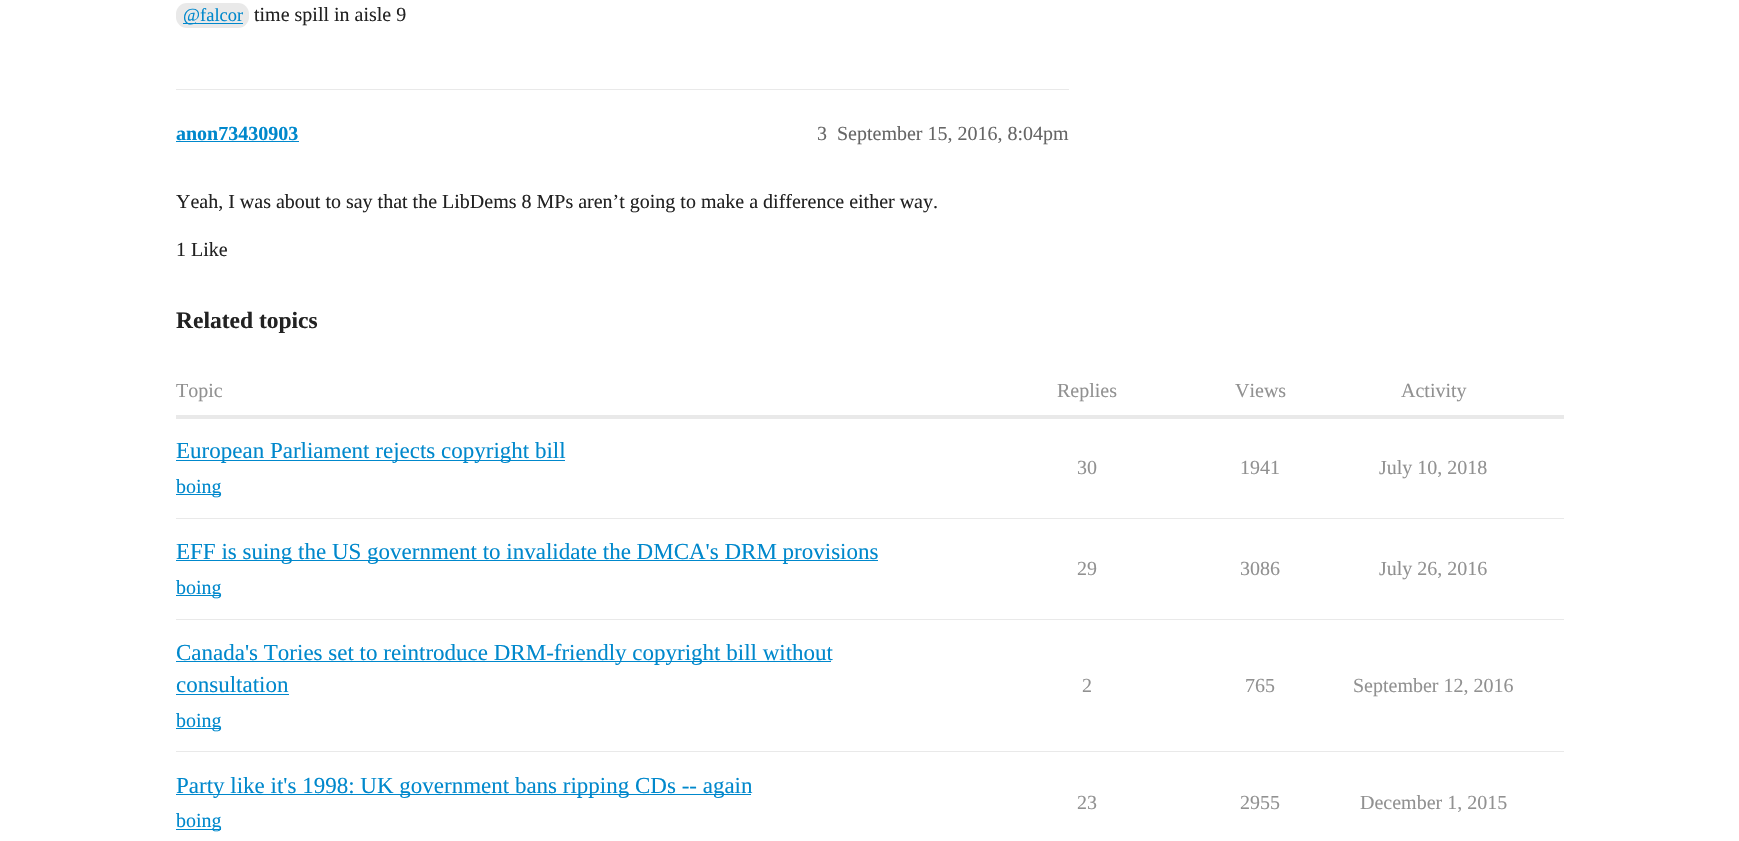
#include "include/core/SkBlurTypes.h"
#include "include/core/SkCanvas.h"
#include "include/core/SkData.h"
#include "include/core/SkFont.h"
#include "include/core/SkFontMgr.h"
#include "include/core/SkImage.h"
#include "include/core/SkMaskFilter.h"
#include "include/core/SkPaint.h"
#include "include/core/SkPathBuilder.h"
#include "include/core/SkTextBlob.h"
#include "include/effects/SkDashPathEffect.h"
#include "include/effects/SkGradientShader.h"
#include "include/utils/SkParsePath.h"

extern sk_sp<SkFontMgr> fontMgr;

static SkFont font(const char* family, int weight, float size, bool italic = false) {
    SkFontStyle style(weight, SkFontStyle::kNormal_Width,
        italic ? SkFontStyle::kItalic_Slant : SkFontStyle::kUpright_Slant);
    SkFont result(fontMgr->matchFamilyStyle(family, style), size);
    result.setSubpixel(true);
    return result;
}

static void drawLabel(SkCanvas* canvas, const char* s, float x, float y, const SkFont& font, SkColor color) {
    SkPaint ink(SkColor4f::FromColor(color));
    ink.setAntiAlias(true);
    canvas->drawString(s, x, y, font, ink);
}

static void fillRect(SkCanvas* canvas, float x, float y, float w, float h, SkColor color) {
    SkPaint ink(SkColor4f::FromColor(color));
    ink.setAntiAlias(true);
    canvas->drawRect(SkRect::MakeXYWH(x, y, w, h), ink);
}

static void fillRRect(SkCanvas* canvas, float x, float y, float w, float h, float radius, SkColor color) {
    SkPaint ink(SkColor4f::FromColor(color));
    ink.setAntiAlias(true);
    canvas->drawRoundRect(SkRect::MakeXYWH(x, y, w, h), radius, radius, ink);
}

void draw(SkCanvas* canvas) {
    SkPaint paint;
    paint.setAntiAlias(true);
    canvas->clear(0xFFFFFFFF);
    fillRRect(canvas, 176, 3, 73, 25, 11, 0xFFE9E9E9);
    fillRect(canvas, 183, 23, 60, 1, 0xFF0088CC);
    SkFont font1 = font("Liberation Serif", 400, 18.5f);
    drawLabel(canvas, "@falcor", 183, 21, font1, 0xFF0088CC);
    SkFont font2 = font("Liberation Serif", 400, 20);
    drawLabel(canvas, "time spill in aisle 9", 254, 21, font2, 0xFF222222);
    fillRect(canvas, 176, 89, 893, 1, 0xFFE9E9E9);
    SkFont font3 = font("Liberation Serif", 700, 20);
    drawLabel(canvas, "anon73430903", 176, 140, font3, 0xFF0088CC);
    fillRect(canvas, 176, 141, 123, 1, 0xFF0088CC);
    drawLabel(canvas, "3", 817, 140, font2, 0xFF666666);
    drawLabel(canvas, "September 15, 2016, 8:04pm", 837, 140, font2, 0xFF666666);
    drawLabel(canvas, "Yeah, I was about to say that the LibDems 8 MPs aren’t going to make a difference either way.", 176, 208, font2, 0xFF222222);
    drawLabel(canvas, "1 Like", 176, 256, font2, 0xFF222222);
    SkFont font4 = font("Liberation Serif", 700, 23.5f);
    drawLabel(canvas, "Related topics", 176, 328, font4, 0xFF222222);
    drawLabel(canvas, "Topic", 176, 397, font2, 0xFF919191);
    drawLabel(canvas, "Replies", 1057, 397, font2, 0xFF919191);
    drawLabel(canvas, "Views", 1235, 397, font2, 0xFF919191);
    drawLabel(canvas, "Activity", 1401, 397, font2, 0xFF919191);
    fillRect(canvas, 176, 415, 1388, 4, 0xFFE9E9E9);
    fillRect(canvas, 176, 518, 1388, 1, 0xFFE9E9E9);
    fillRect(canvas, 176, 460, 389, 1, 0xFF0088CC);
    SkFont font5 = font("Liberation Serif", 400, 23);
    drawLabel(canvas, "European Parliament rejects copyright bill", 176, 458, font5, 0xFF0088CC);
    fillRect(canvas, 176, 494, 45, 1, 0xFF0088CC);
    drawLabel(canvas, "boing", 176, 493, font2, 0xFF0088CC);
    drawLabel(canvas, "30", 1077, 474, font2, 0xFF919191);
    drawLabel(canvas, "1941", 1240, 474, font2, 0xFF919191);
    drawLabel(canvas, "July 10, 2018", 1379, 474, font2, 0xFF919191);
    fillRect(canvas, 176, 619, 1388, 1, 0xFFE9E9E9);
    fillRect(canvas, 176, 560, 702, 1, 0xFF0088CC);
    drawLabel(canvas, "EFF is suing the US government to invalidate the DMCA's DRM provisions", 176, 559, font5, 0xFF0088CC);
    fillRect(canvas, 176, 595, 45, 1, 0xFF0088CC);
    drawLabel(canvas, "boing", 176, 594, font2, 0xFF0088CC);
    drawLabel(canvas, "29", 1077, 575, font2, 0xFF919191);
    drawLabel(canvas, "3086", 1240, 575, font2, 0xFF919191);
    drawLabel(canvas, "July 26, 2016", 1379, 575, font2, 0xFF919191);
    fillRect(canvas, 176, 751, 1388, 1, 0xFFE9E9E9);
    fillRect(canvas, 176, 661, 655, 1, 0xFF0088CC);
    drawLabel(canvas, "Canada's Tories set to reintroduce DRM-friendly copyright bill without", 176, 660, font5, 0xFF0088CC);
    drawLabel(canvas, "consultation", 176, 692, font5, 0xFF0088CC);
    fillRect(canvas, 176, 694, 113, 1, 0xFF0088CC);
    fillRect(canvas, 176, 728, 45, 1, 0xFF0088CC);
    drawLabel(canvas, "boing", 176, 727, font2, 0xFF0088CC);
    drawLabel(canvas, "2", 1082, 692, font2, 0xFF919191);
    drawLabel(canvas, "765", 1245, 692, font2, 0xFF919191);
    drawLabel(canvas, "September 12, 2016", 1353, 692, font2, 0xFF919191);
    fillRect(canvas, 176, 794, 575, 1, 0xFF0088CC);
    drawLabel(canvas, "Party like it's 1998: UK government bans ripping CDs -- again", 176, 793, font5, 0xFF0088CC);
    fillRect(canvas, 176, 829, 45, 1, 0xFF0088CC);
    drawLabel(canvas, "boing", 176, 827, font2, 0xFF0088CC);
    drawLabel(canvas, "23", 1077, 809, font2, 0xFF919191);
    drawLabel(canvas, "2955", 1240, 809, font2, 0xFF919191);
    drawLabel(canvas, "December 1, 2015", 1360, 809, font2, 0xFF919191);
}
